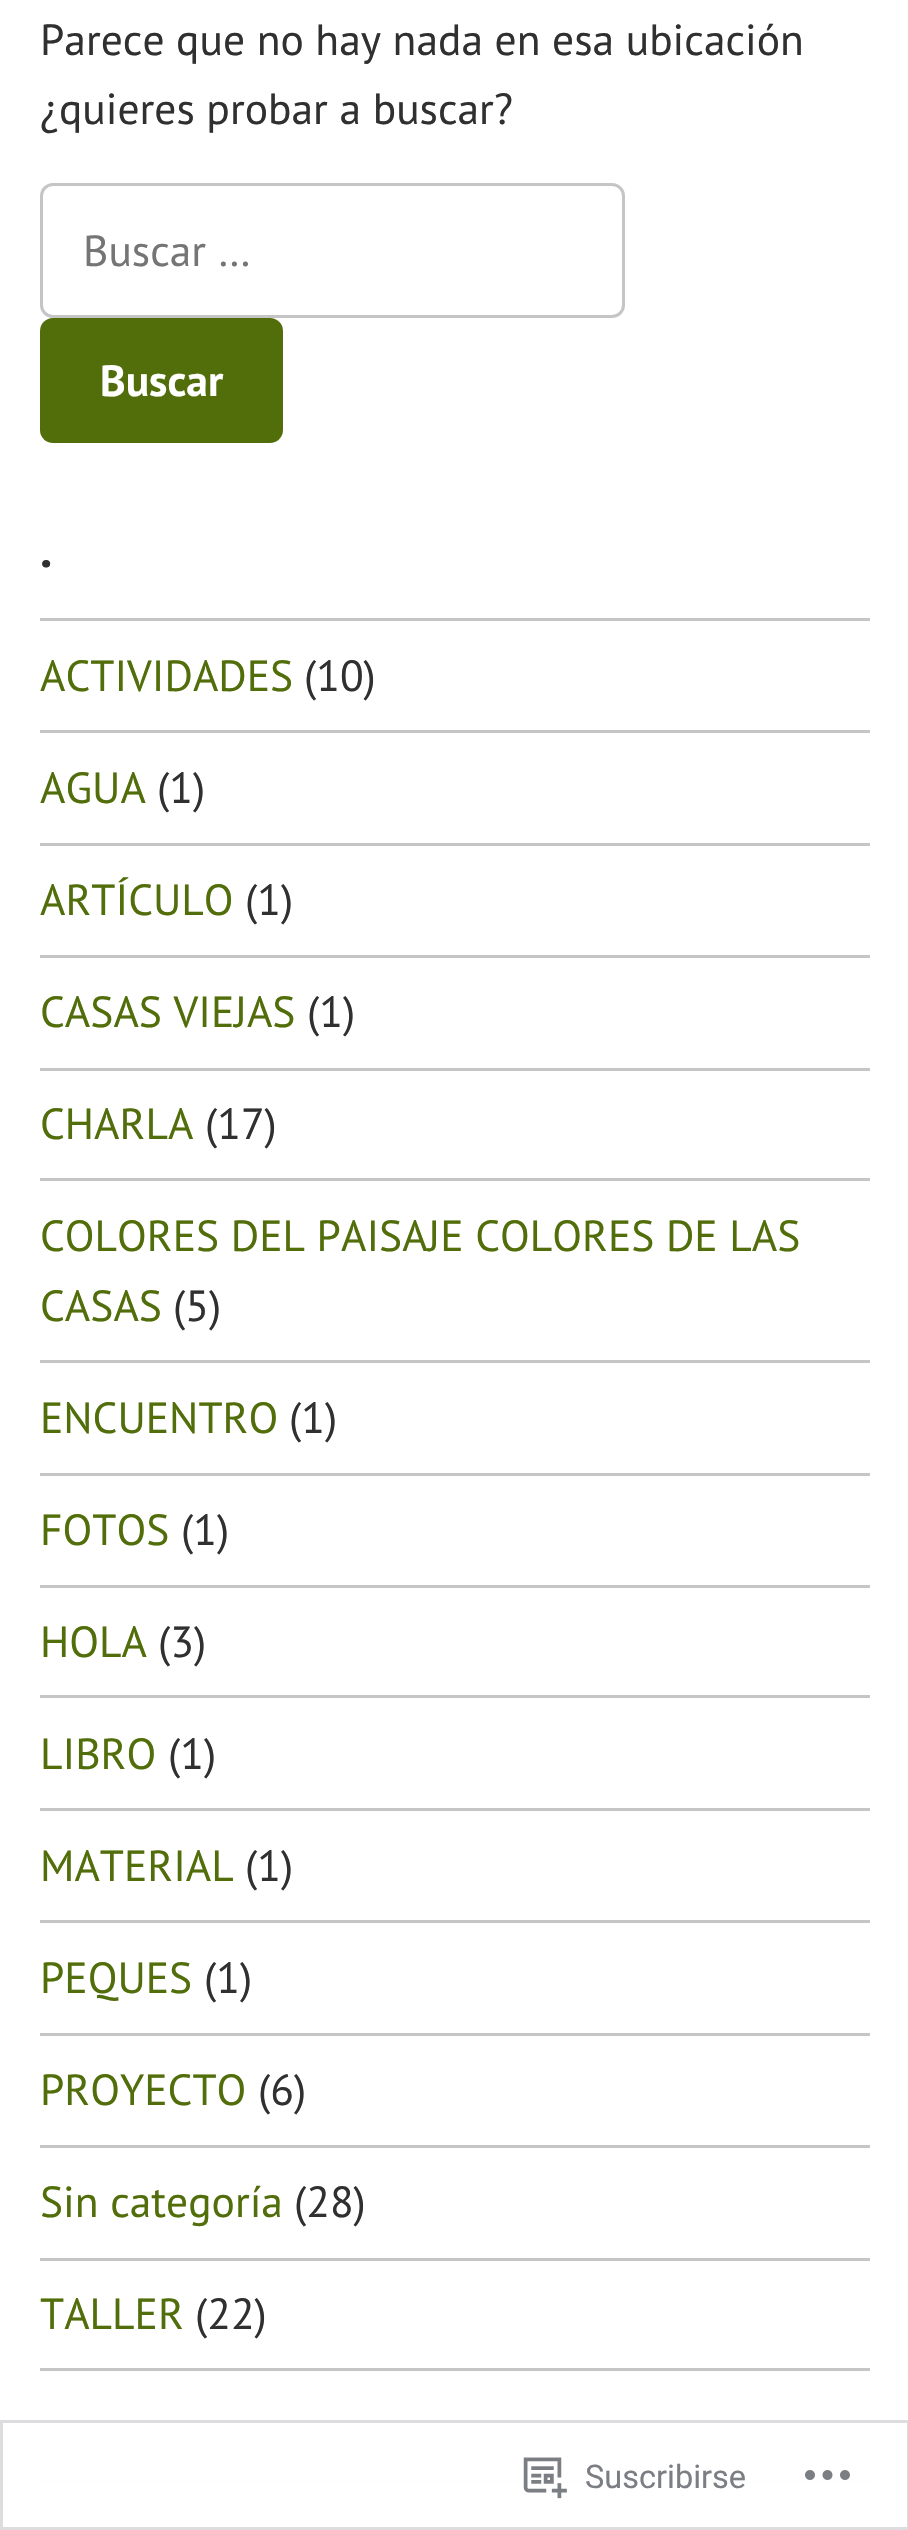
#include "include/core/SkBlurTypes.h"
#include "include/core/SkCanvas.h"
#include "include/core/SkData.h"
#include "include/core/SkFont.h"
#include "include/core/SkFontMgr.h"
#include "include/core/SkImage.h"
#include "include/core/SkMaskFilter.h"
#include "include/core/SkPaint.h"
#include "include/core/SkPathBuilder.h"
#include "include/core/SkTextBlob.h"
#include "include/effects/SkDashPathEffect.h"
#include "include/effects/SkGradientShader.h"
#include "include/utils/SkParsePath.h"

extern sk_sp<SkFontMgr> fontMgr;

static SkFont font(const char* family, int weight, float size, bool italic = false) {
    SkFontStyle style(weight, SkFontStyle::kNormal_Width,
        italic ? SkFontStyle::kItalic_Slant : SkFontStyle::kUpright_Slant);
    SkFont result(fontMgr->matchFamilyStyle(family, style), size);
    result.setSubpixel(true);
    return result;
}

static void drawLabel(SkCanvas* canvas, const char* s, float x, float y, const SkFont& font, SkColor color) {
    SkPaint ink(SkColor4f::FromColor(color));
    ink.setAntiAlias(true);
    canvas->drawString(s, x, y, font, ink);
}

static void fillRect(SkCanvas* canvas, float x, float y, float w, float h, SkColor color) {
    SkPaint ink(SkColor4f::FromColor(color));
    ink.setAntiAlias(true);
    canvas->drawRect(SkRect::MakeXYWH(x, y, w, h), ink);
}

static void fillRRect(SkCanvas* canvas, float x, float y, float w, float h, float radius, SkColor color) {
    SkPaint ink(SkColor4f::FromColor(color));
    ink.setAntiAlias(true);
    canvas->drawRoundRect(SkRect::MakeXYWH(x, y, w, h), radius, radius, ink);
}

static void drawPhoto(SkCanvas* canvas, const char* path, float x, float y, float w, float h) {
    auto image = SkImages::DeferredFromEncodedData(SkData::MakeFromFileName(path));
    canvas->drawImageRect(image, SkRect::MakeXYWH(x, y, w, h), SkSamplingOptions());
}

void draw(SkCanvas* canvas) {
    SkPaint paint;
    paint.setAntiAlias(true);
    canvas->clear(0xFFFFFFFF);
    SkFont font1 = font("PT Sans", 400, 43.5f);
    drawLabel(canvas, "Parece que no hay nada en esa ubicación", 40, 55, font1, 0xFF303030);
    drawLabel(canvas, "¿quieres probar a buscar?", 40, 124, font1, 0xFF303030);
    paint.setStroke(true);
    paint.setStrokeWidth(3);
    paint.setColor(0xFFC5C5C5);
    canvas->drawRoundRect(SkRect::MakeXYWH(41.5f, 184.5f, 582, 132), 11.5f, 11.5f, paint);
    drawLabel(canvas, "Buscar …", 83, 266, font1, 0xFF757575);
    fillRRect(canvas, 40, 318, 243, 125, 13, 0xFF526E0B);
    SkFont font2 = font("PT Sans", 700, 43.5f);
    drawLabel(canvas, "Buscar", 100, 396, font2, 0xFFFFFFFF);
    SkFont font3 = font("PT Sans", 700, 50);
    drawLabel(canvas, ".", 40, 567, font3, 0xFF303030);
    fillRect(canvas, 40, 618, 830, 3, 0xFFC5C5C5);
    drawLabel(canvas, "ACTIVIDADES", 40, 691, font1, 0xFF526E0B);
    drawLabel(canvas, "(10)", 304, 691, font1, 0xFF303030);
    fillRect(canvas, 40, 730, 830, 3, 0xFFC5C5C5);
    drawLabel(canvas, "AGUA", 40, 803, font1, 0xFF526E0B);
    drawLabel(canvas, "(1)", 157, 803, font1, 0xFF303030);
    fillRect(canvas, 40, 843, 830, 3, 0xFFC5C5C5);
    drawLabel(canvas, "ARTÍCULO", 40, 915, font1, 0xFF526E0B);
    drawLabel(canvas, "(1)", 245, 915, font1, 0xFF303030);
    fillRect(canvas, 40, 955, 830, 3, 0xFFC5C5C5);
    drawLabel(canvas, "CASAS VIEJAS", 40, 1027, font1, 0xFF526E0B);
    drawLabel(canvas, "(1)", 307, 1027, font1, 0xFF303030);
    fillRect(canvas, 40, 1068, 830, 3, 0xFFC5C5C5);
    drawLabel(canvas, "CHARLA", 40, 1139, font1, 0xFF526E0B);
    drawLabel(canvas, "(17)", 205, 1139, font1, 0xFF303030);
    fillRect(canvas, 40, 1178, 830, 3, 0xFFC5C5C5);
    drawLabel(canvas, "COLORES DEL PAISAJE COLORES DE LAS", 40, 1251, font1, 0xFF526E0B);
    drawLabel(canvas, "CASAS", 40, 1321, font1, 0xFF526E0B);
    drawLabel(canvas, "(5)", 173, 1321, font1, 0xFF303030);
    fillRect(canvas, 40, 1360, 830, 3, 0xFFC5C5C5);
    drawLabel(canvas, "ENCUENTRO", 40, 1433, font1, 0xFF526E0B);
    drawLabel(canvas, "(1)", 289, 1433, font1, 0xFF303030);
    fillRect(canvas, 40, 1473, 830, 3, 0xFFC5C5C5);
    drawLabel(canvas, "FOTOS", 40, 1545, font1, 0xFF526E0B);
    drawLabel(canvas, "(1)", 181, 1545, font1, 0xFF303030);
    fillRect(canvas, 40, 1585, 830, 3, 0xFFC5C5C5);
    drawLabel(canvas, "HOLA", 40, 1657, font1, 0xFF526E0B);
    drawLabel(canvas, "(3)", 158, 1657, font1, 0xFF303030);
    fillRect(canvas, 40, 1695, 830, 3, 0xFFC5C5C5);
    drawLabel(canvas, "LIBRO", 40, 1769, font1, 0xFF526E0B);
    drawLabel(canvas, "(1)", 168, 1769, font1, 0xFF303030);
    fillRect(canvas, 40, 1808, 830, 3, 0xFFC5C5C5);
    drawLabel(canvas, "MATERIAL", 40, 1881, font1, 0xFF526E0B);
    drawLabel(canvas, "(1)", 245, 1881, font1, 0xFF303030);
    fillRect(canvas, 40, 1920, 830, 3, 0xFFC5C5C5);
    drawLabel(canvas, "PEQUES", 40, 1993, font1, 0xFF526E0B);
    drawLabel(canvas, "(1)", 204, 1993, font1, 0xFF303030);
    fillRect(canvas, 40, 2033, 830, 3, 0xFFC5C5C5);
    drawLabel(canvas, "PROYECTO", 40, 2105, font1, 0xFF526E0B);
    drawLabel(canvas, "(6)", 258, 2105, font1, 0xFF303030);
    fillRect(canvas, 40, 2145, 830, 3, 0xFFC5C5C5);
    drawLabel(canvas, "Sin categoría", 40, 2217, font1, 0xFF526E0B);
    drawLabel(canvas, "(28)", 294, 2217, font1, 0xFF303030);
    fillRect(canvas, 40, 2258, 830, 3, 0xFFC5C5C5);
    drawLabel(canvas, "TALLER", 40, 2329, font1, 0xFF526E0B);
    drawLabel(canvas, "(22)", 195, 2329, font1, 0xFF303030);
    fillRect(canvas, 40, 2368, 830, 3, 0xFFC5C5C5);
    fillRect(canvas, 40, 2480, 830, 3, 0xFFC5C5C5);
    fillRect(canvas, 40, 2480, 830, 3, 0xFAFFFFFF);
    paint.setColor(0xFADCDCDE);
    canvas->drawRect(SkRect::MakeXYWH(1.5f, 2421.5f, 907, 107), paint);
    drawPhoto(canvas, "assets/img1.png", 523, 2457, 44, 42);
    SkFont font4 = font("Roboto", 400, 32.5f);
    drawLabel(canvas, "Suscribirse", 585, 2488, font4, 0xFF7B7F84);
    drawPhoto(canvas, "assets/img2.png", 805, 2470, 45, 10);
}
